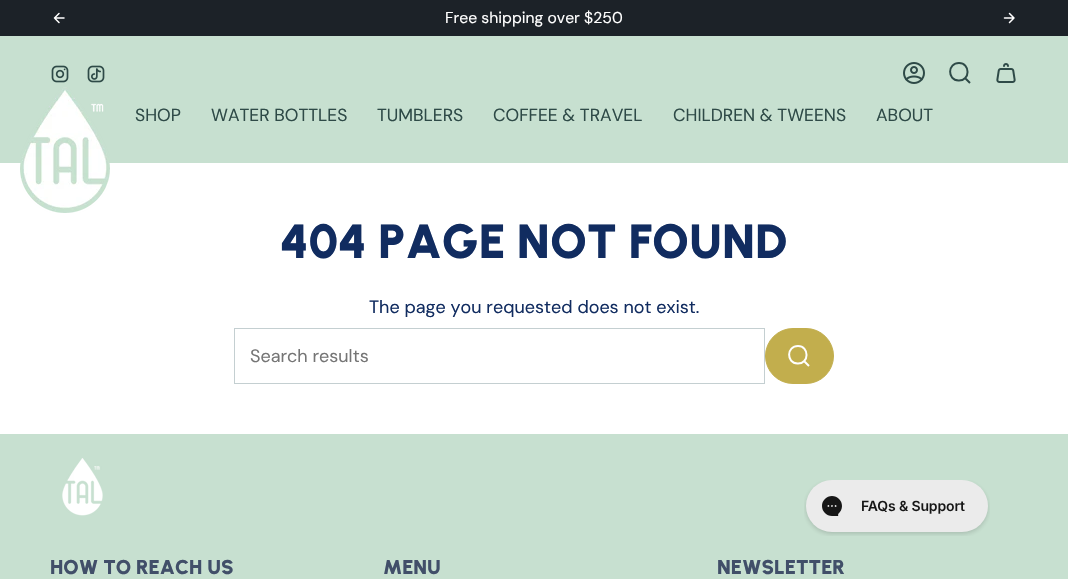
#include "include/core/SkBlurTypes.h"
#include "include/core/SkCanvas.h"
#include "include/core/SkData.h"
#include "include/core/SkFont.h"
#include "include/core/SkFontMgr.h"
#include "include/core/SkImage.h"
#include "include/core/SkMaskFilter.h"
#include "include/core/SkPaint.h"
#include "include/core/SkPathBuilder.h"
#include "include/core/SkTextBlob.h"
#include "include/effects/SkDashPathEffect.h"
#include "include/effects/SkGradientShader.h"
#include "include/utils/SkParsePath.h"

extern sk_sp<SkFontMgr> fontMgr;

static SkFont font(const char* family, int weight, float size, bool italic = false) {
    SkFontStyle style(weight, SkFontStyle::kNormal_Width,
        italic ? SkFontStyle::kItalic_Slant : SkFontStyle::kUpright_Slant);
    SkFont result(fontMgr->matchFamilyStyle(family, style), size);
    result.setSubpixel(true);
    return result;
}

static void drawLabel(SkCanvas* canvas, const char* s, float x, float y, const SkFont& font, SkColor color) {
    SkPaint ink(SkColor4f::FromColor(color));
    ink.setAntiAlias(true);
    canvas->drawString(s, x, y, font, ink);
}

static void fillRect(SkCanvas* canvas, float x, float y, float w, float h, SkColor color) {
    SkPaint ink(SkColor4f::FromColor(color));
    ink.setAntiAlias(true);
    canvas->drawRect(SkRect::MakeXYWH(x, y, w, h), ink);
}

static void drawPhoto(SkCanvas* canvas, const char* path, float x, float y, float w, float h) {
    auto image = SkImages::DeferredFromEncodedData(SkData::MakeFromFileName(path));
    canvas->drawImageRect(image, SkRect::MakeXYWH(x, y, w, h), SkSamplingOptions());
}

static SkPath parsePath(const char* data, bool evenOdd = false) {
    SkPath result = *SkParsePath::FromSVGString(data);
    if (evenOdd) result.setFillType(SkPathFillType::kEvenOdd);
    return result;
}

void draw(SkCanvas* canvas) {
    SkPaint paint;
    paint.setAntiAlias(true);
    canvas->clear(0xFFFFFFFF);
    fillRect(canvas, 0, 0, 1068, 36, 0xFF1C2228);
    paint.setStroke(true);
    paint.setStrokeWidth(1.5f);
    paint.setStrokeCap(SkPaint::kRound_Cap);
    paint.setStrokeJoin(SkPaint::kRound_Join);
    paint.setColor(0xFFFFFFFF);
    canvas->drawPath(parsePath("M64 18H54.5M54.5 18L59 13.5M54.5 18L59 22.5"), paint);
    SkFont font1 = font("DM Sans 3", 400, 15.75f);
    drawLabel(canvas, "Free shipping over $250", 445, 23, font1, 0xFFFFFFFF);
    canvas->drawPath(parsePath("M1004.5 18H1014M1014 18L1009.5 13.5M1014 18L1009.5 22.5"), paint);
    fillRect(canvas, 0, 36, 1068, 127, 0xFFC7E0D0);
    drawPhoto(canvas, "assets/img1.png", 51, 65, 18, 18);
    drawPhoto(canvas, "assets/img2.png", 87, 65, 18, 18);
    drawPhoto(canvas, "assets/img3.png", 903, 62, 22, 22);
    paint.setStrokeWidth(2);
    paint.setStrokeCap(SkPaint::kButt_Cap);
    paint.setStrokeJoin(SkPaint::kMiter_Join);
    paint.setColor(0xFF2E4A47);
    canvas->drawPath(parsePath("M959 63C970.5 63 970.5 81 958.5 80.5C947 80 947.5 63 959 63ZM965 78L970 83"), paint);
    drawPhoto(canvas, "assets/img4.png", 996, 63, 20, 20);
    drawPhoto(canvas, "assets/img5.png", 20, 87, 90, 126);
    SkFont font2 = font("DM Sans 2", 400, 17.5f);
    drawLabel(canvas, "SHOP", 135, 121, font2, 0xFF2E4A47);
    drawLabel(canvas, "WATER BOTTLES", 211, 121, font2, 0xFF2E4A47);
    drawLabel(canvas, "TUMBLERS", 377, 121, font2, 0xFF2E4A47);
    drawLabel(canvas, "COFFEE & TRAVEL", 493, 121, font2, 0xFF2E4A47);
    drawLabel(canvas, "CHILDREN & TWEENS", 673, 121, font2, 0xFF2E4A47);
    drawLabel(canvas, "ABOUT", 876, 121, font2, 0xFF2E4A47);
    SkFont font3 = font("Urbanist", 900, 48);
    drawLabel(canvas, "404 PAGE NOT FOUND", 280, 258, font3, 0xFF112C60);
    SkFont font4 = font("DM Sans", 400, 18);
    drawLabel(canvas, "The page you requested does not exist.", 369, 313, font4, 0xFF112C60);
    paint.setStrokeWidth(1);
    paint.setColor(0xFFC4CFD1);
    canvas->drawRect(SkRect::MakeXYWH(234.5f, 328.5f, 530, 55), paint);
    drawLabel(canvas, "Search results", 250, 362, font4, 0xFF757575);
    paint.setStroke(false);
    paint.setColor(0xFFC2AE4D);
    canvas->drawRoundRect(SkRect::MakeXYWH(765.5f, 328.5f, 68, 55), 27.5f, 27.5f, paint);
    paint.setStroke(true);
    canvas->drawRoundRect(SkRect::MakeXYWH(765.5f, 328.5f, 68, 55), 27.5f, 27.5f, paint);
    paint.setStrokeWidth(2);
    paint.setColor(0xFFFFFFFF);
    canvas->drawPath(parsePath("M798 346C809.5 346 809.5 364 797.5 363.5C786 363 786.5 346 798 346ZM804 361L809 366"), paint);
    fillRect(canvas, 0, 434, 1068, 145, 0xFFC7E0D0);
    drawPhoto(canvas, "assets/img6.png", 804, 480, 186, 56);
    drawPhoto(canvas, "assets/img7.png", 62, 458, 41, 58);
    SkFont font5 = font("Urbanist", 900, 20);
    drawLabel(canvas, "HOW TO REACH US", 50, 574, font5, 0xFF414F69);
    drawLabel(canvas, "MENU", 383, 574, font5, 0xFF414F69);
    drawLabel(canvas, "NEWSLETTER", 717, 574, font5, 0xFF414F69);
}
